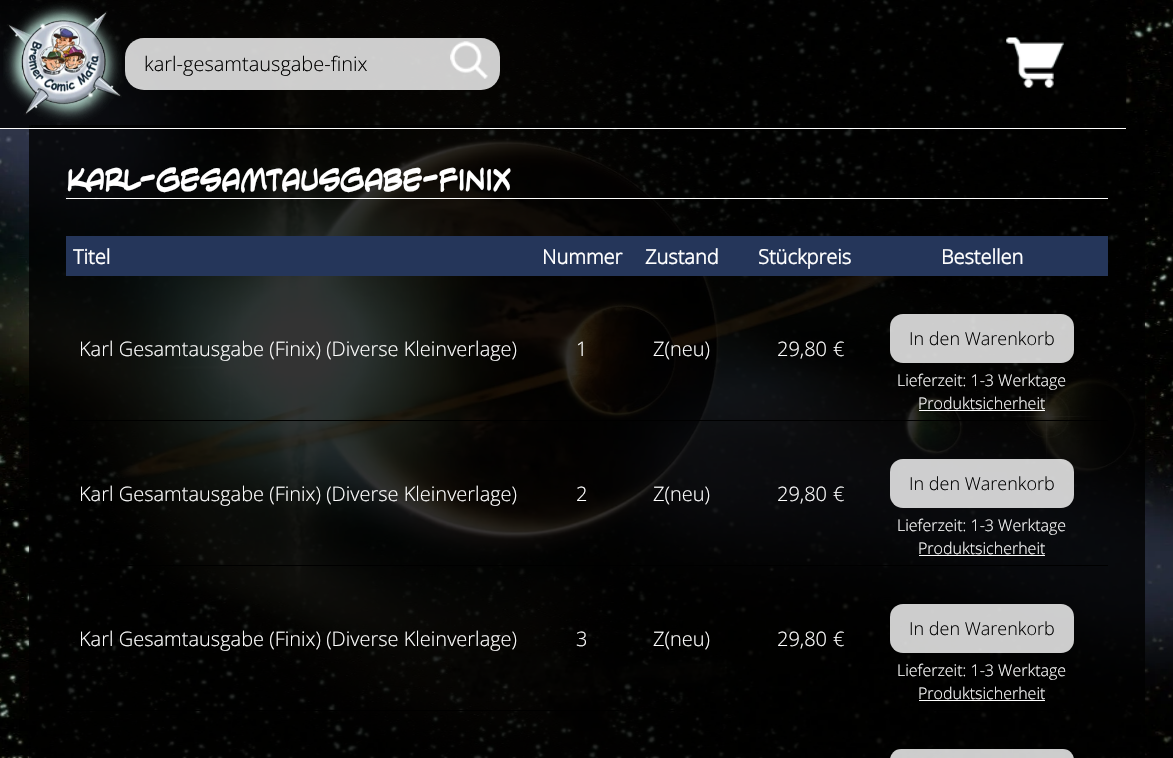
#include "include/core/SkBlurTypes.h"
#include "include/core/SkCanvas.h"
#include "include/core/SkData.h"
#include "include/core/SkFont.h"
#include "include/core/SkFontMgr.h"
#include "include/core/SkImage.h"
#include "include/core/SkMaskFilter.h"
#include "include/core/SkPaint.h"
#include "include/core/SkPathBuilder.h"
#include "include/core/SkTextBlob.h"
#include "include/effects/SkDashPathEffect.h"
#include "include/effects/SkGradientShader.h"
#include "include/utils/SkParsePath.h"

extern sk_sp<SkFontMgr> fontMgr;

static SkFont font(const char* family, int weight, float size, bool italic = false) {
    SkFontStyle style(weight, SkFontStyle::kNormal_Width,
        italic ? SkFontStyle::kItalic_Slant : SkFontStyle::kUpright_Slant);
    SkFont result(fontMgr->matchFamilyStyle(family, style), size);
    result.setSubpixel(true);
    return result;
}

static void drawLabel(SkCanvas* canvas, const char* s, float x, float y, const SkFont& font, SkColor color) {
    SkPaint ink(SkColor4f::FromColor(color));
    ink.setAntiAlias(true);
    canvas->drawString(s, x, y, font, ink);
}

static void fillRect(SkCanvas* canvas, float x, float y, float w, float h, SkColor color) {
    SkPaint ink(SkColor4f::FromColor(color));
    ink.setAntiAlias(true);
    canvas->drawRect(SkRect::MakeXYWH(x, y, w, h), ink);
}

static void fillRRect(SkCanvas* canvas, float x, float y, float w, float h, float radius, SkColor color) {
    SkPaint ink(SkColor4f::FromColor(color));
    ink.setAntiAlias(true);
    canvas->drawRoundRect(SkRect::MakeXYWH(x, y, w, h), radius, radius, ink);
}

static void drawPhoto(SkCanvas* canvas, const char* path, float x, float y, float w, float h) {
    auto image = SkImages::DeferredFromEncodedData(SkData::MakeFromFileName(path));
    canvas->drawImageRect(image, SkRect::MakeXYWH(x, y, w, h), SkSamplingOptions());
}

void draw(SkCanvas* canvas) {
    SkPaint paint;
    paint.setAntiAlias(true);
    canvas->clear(0xFFFFFFFF);
    drawPhoto(canvas, "assets/img1.png", 0, 0, 1173, 758);
    fillRect(canvas, 29, 125, 1116, 633, 0xCC000000);
    fillRect(canvas, 0, 0, 1126, 128, 0xCC000000);
    fillRect(canvas, 0, 128, 1126, 1, 0xFFFFFFFF);
    drawPhoto(canvas, "assets/img2.png", 3, 1, 119, 126);
    fillRRect(canvas, 125, 38, 375, 52, 19, 0xCCFFFFFF);
    SkFont font1 = font("Open Sans", 300, 20);
    drawLabel(canvas, "karl-gesamtausgabe-finix", 144, 71, font1, 0xFF000000);
    drawPhoto(canvas, "assets/img3.png", 450, 41, 38, 38);
    drawPhoto(canvas, "assets/img4.png", 1006, 37, 58, 51);
    fillRect(canvas, 66, 198, 1042, 1, 0xFFFFFFFF);
    SkFont font2 = font("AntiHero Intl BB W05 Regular", 700, 30);
    drawLabel(canvas, "karl-gesamtausgabe-finix", 67, 191, font2, 0xFFFFFFFF);
    fillRect(canvas, 66, 236, 1042, 40, 0xFF25365A);
    SkFont font3 = font("Open Sans", 700, 20);
    drawLabel(canvas, "Titel", 73, 264, font3, 0xFFFFFFFF);
    drawLabel(canvas, "Nummer", 542, 264, font3, 0xFFFFFFFF);
    drawLabel(canvas, "Zustand", 645, 264, font3, 0xFFFFFFFF);
    drawLabel(canvas, "Stückpreis", 758, 264, font3, 0xFFFFFFFF);
    drawLabel(canvas, "Bestellen", 941, 264, font3, 0xFFFFFFFF);
    fillRect(canvas, 66, 420, 1042, 1, 0xFF000000);
    drawLabel(canvas, "Karl Gesamtausgabe (Finix) (Diverse Kleinverlage)", 79, 356, font1, 0xFFFFFFFF);
    drawLabel(canvas, "1", 576, 356, font1, 0xFFFFFFFF);
    drawLabel(canvas, "Z(neu)", 653, 356, font1, 0xFFFFFFFF);
    drawLabel(canvas, "29,80", 777, 356, font1, 0xFFFFFFFF);
    drawLabel(canvas, "€", 833, 356, font1, 0xFFFFFFFF);
    fillRRect(canvas, 890, 314, 184, 49, 13, 0xCCFFFFFF);
    SkFont font4 = font("Open Sans", 300, 18);
    drawLabel(canvas, "In den Warenkorb", 909, 345, font4, 0xFF000000);
    SkFont font5 = font("Open Sans", 300, 16);
    drawLabel(canvas, "Lieferzeit: 1-3 Werktage", 897, 386, font5, 0xFFFFFFFF);
    drawLabel(canvas, "Produktsicherheit", 918, 409, font5, 0xFFFFFFFF);
    fillRect(canvas, 919, 410, 126, 1, 0xFFFFFFFF);
    fillRect(canvas, 96, 565, 1012, 1, 0xFF000000);
    drawLabel(canvas, "Karl Gesamtausgabe (Finix) (Diverse Kleinverlage)", 79, 501, font1, 0xFFFFFFFF);
    drawLabel(canvas, "2", 576, 501, font1, 0xFFFFFFFF);
    drawLabel(canvas, "Z(neu)", 653, 501, font1, 0xFFFFFFFF);
    drawLabel(canvas, "29,80", 777, 501, font1, 0xFFFFFFFF);
    drawLabel(canvas, "€", 833, 501, font1, 0xFFFFFFFF);
    fillRRect(canvas, 890, 459, 184, 49, 13, 0xCCFFFFFF);
    drawLabel(canvas, "In den Warenkorb", 909, 490, font4, 0xFF000000);
    drawLabel(canvas, "Lieferzeit: 1-3 Werktage", 897, 531, font5, 0xFFFFFFFF);
    drawLabel(canvas, "Produktsicherheit", 918, 554, font5, 0xFFFFFFFF);
    fillRect(canvas, 919, 555, 126, 1, 0xFFFFFFFF);
    fillRect(canvas, 66, 710, 553, 1, 0xFF000000);
    drawLabel(canvas, "Karl Gesamtausgabe (Finix) (Diverse Kleinverlage)", 79, 646, font1, 0xFFFFFFFF);
    drawLabel(canvas, "3", 576, 646, font1, 0xFFFFFFFF);
    fillRect(canvas, 668, 710, 7, 1, 0xFF000000);
    drawLabel(canvas, "Z(neu)", 653, 646, font1, 0xFFFFFFFF);
    drawLabel(canvas, "29,80", 777, 646, font1, 0xFFFFFFFF);
    drawLabel(canvas, "€", 833, 646, font1, 0xFFFFFFFF);
    fillRect(canvas, 934, 710, 132, 1, 0xFF000000);
    fillRRect(canvas, 890, 604, 184, 49, 13, 0xCCFFFFFF);
    drawLabel(canvas, "In den Warenkorb", 909, 635, font4, 0xFF000000);
    drawLabel(canvas, "Lieferzeit: 1-3 Werktage", 897, 676, font5, 0xFFFFFFFF);
    drawLabel(canvas, "Produktsicherheit", 918, 699, font5, 0xFFFFFFFF);
    fillRect(canvas, 919, 700, 126, 1, 0xFFFFFFFF);
    fillRRect(canvas, 890, 749, 184, 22, 13, 0xCCFFFFFF);
}
